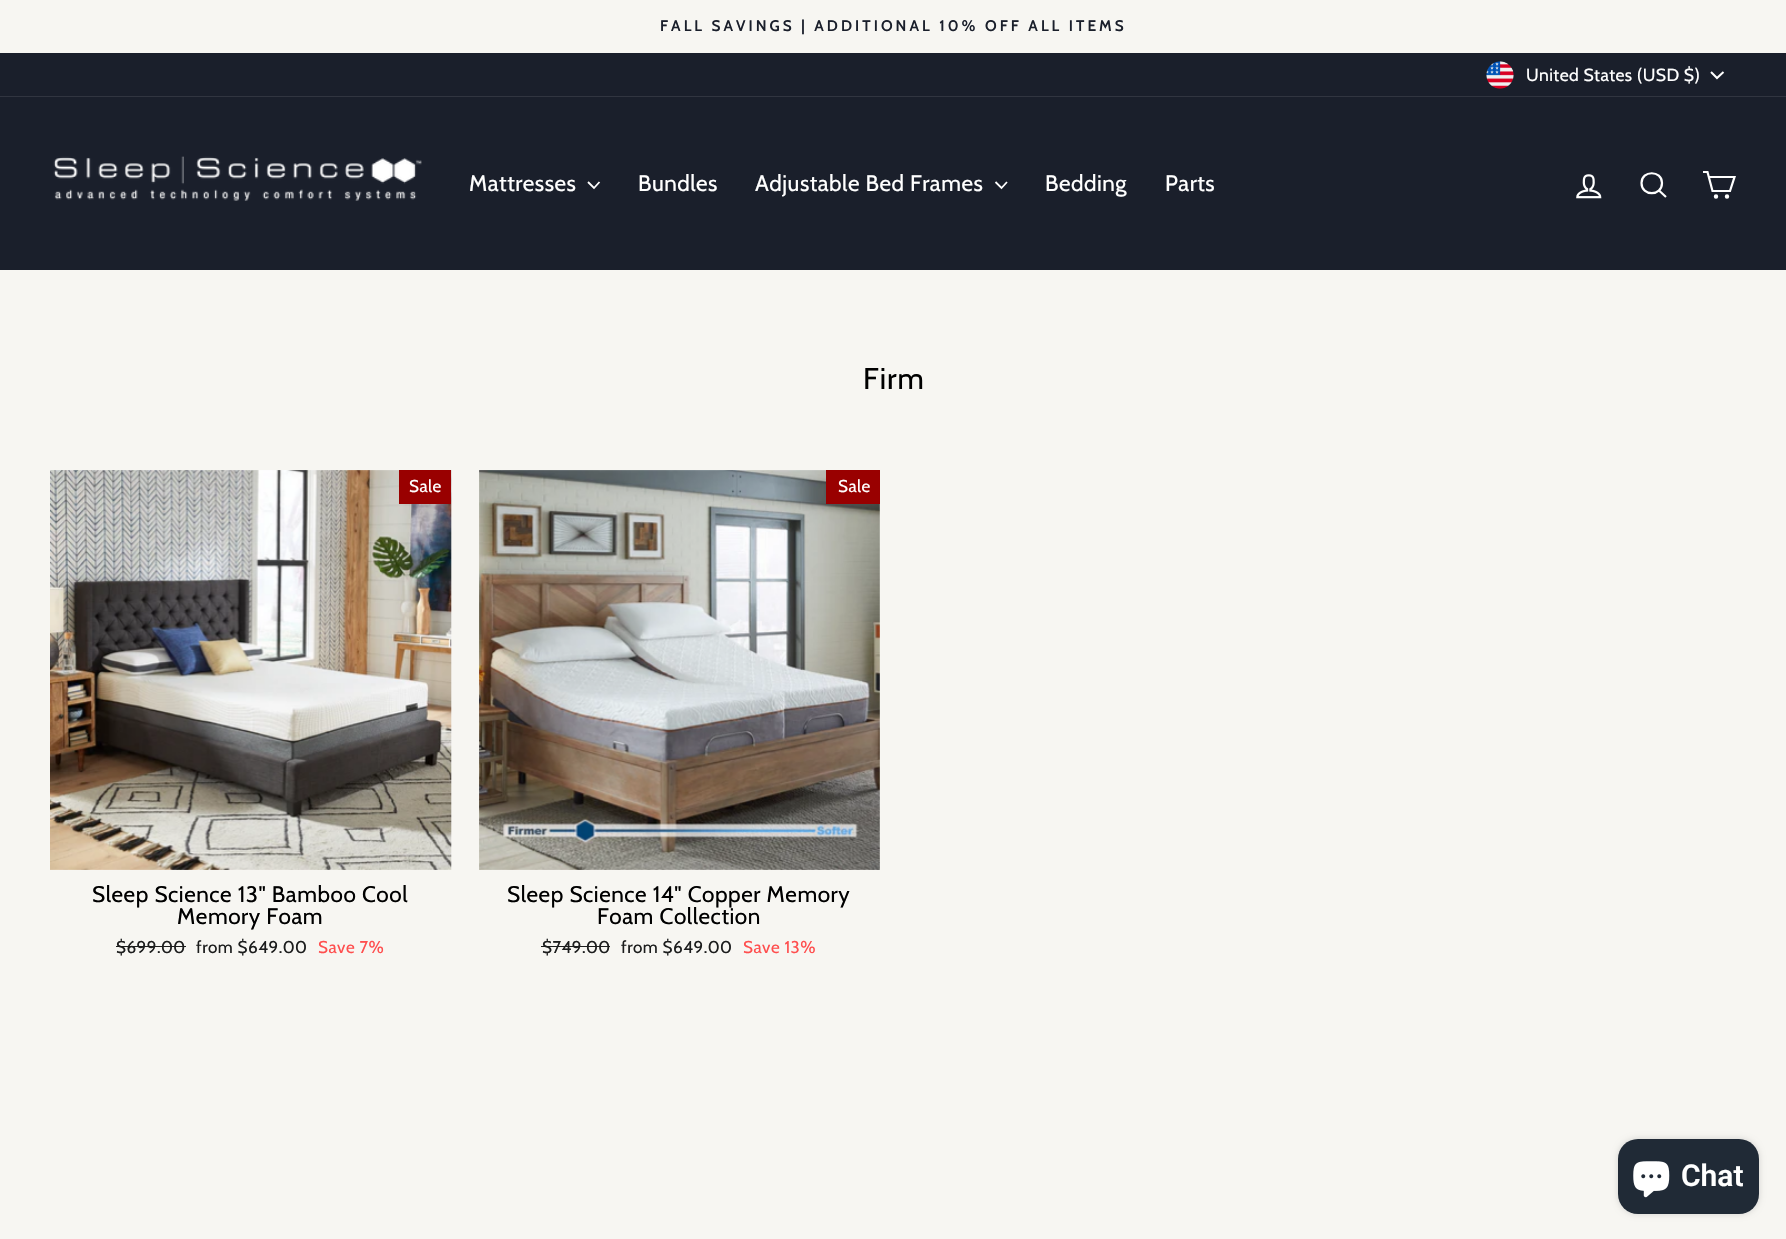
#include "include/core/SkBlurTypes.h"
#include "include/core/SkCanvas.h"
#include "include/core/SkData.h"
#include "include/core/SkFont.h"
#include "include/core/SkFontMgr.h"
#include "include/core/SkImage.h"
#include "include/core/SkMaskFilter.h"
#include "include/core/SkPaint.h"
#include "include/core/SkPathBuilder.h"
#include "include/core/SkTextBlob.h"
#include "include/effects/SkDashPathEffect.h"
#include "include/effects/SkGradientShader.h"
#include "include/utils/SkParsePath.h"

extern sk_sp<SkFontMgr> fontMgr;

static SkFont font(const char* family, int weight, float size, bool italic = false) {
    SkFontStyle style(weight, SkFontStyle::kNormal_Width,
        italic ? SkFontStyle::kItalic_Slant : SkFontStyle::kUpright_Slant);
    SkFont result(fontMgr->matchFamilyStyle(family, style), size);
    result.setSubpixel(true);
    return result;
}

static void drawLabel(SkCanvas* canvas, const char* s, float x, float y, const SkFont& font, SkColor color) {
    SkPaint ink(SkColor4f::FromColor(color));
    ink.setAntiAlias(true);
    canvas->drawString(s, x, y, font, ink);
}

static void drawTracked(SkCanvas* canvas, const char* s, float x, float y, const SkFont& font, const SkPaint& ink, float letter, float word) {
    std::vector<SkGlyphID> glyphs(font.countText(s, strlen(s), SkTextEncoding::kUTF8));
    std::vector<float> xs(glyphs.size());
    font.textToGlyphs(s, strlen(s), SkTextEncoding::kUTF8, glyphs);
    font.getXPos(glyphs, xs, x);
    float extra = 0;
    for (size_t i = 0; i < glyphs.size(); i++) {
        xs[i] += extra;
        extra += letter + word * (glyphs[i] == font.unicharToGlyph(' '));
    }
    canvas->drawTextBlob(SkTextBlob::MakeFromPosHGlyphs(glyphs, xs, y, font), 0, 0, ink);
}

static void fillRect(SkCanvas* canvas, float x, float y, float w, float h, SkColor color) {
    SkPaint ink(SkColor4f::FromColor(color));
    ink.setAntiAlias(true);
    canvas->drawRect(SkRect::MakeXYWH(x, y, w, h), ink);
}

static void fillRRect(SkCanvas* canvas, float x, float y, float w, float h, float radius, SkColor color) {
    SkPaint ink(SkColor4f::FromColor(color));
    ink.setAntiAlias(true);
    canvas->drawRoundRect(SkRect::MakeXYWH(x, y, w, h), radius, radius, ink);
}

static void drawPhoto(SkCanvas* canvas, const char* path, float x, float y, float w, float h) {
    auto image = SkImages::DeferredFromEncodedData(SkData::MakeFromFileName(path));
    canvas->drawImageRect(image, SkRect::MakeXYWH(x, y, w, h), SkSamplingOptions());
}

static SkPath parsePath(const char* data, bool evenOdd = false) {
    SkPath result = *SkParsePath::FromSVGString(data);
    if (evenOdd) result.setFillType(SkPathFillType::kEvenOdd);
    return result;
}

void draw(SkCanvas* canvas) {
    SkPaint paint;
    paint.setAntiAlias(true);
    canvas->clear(0xFFF7F6F2);
    SkFont font1 = font("Cabin", 600, 15.3f);
    paint.setColor(0xFF1A1F2B);
    drawTracked(canvas, "FALL SAVINGS | ADDITIONAL 10% OFF ALL ITEMS", 660, 31, font1, paint, 3.05f, 0);
    fillRect(canvas, 0, 53, 1786, 43, 0xFF1A1F2B);
    drawPhoto(canvas, "assets/img1.png", 1486, 61, 28, 28);
    SkFont font2 = font("Cabin", 400, 17.5f);
    paint.setColor(0xFFFFFFFF);
    drawTracked(canvas, "United States (USD $)", 1526, 81, font2, paint, 0.4f, 0);
    paint.setStroke(true);
    paint.setStrokeWidth(2);
    canvas->drawPath(parsePath("M1711 72L1717 78L1723.5 72"), paint);
    fillRect(canvas, 0, 97, 1786, 173, 0xFF1A1F2B);
    fillRect(canvas, 0, 96, 1786, 1, 0xFF313540);
    drawPhoto(canvas, "assets/img2.png", 53, 156, 369, 45);
    SkFont font3 = font("Cabin", 400, 22.5f);
    paint.setStroke(false);
    drawTracked(canvas, "Mattresses", 469, 191, font3, paint, 0.5f, 0);
    paint.setStroke(true);
    paint.setStrokeWidth(1.8f);
    canvas->drawPath(parsePath("M588 182L594 188L599.5 182"), paint);
    paint.setStroke(false);
    drawTracked(canvas, "Bundles", 638, 191, font3, paint, 0.5f, 0);
    drawTracked(canvas, "Adjustable Bed Frames", 755, 191, font3, paint, 0.5f, 0);
    paint.setStroke(true);
    canvas->drawPath(parsePath("M995.5 182L1001.5 188L1007 182"), paint);
    paint.setStroke(false);
    drawTracked(canvas, "Bedding", 1045, 191, font3, paint, 0.5f, 0);
    drawTracked(canvas, "Parts", 1165, 191, font3, paint, 0.5f, 0);
    drawPhoto(canvas, "assets/img3.png", 1576, 174, 26, 25);
    paint.setStroke(true);
    paint.setStrokeWidth(2.2f);
    canvas->drawPath(parsePath("M1662 183C1662 196.5 1641.5 196.5 1641.5 183C1641.5 170 1662 170 1662 183ZM1666 197L1659 190.5"), paint);
    canvas->drawPath(parsePath("M1709 177H1734.5L1730 191H1712.5L1707.5 172H1703"), paint);
    canvas->drawCircle(1716, 196.5f, 1.1f, paint);
    canvas->drawCircle(1727, 196.5f, 1.1f, paint);
    SkFont font4 = font("Cabin", 400, 30);
    paint.setStroke(false);
    paint.setColor(0xFF000000);
    drawTracked(canvas, "Firm", 863, 389, font4, paint, 1, 0);
    drawPhoto(canvas, "assets/img4.png", 50, 470, 402, 400);
    fillRect(canvas, 399, 470, 52, 34, 0xFF990000);
    SkFont font5 = font("Cabin", 400, 17);
    paint.setColor(0xFFFFFFFF);
    drawTracked(canvas, "Sale", 409, 492, font5, paint, 0.5f, 0);
    paint.setColor(0xFF000000);
    drawTracked(canvas, "Sleep Science 13\" Bamboo Cool", 92, 902, font3, paint, 0.55f, 0);
    drawTracked(canvas, "Memory Foam", 177, 924, font3, paint, 0.55f, 0);
    paint.setColor(0xFF1C1D1D);
    drawTracked(canvas, "$699.00", 116, 953, font5, paint, 0.5f, 0);
    fillRect(canvas, 116, 946, 70, 1, 0xFF1C1D1D);
    drawTracked(canvas, "from $649.00", 196, 953, font5, paint, 0.5f, 0);
    paint.setColor(0xFFFF4E4E);
    drawTracked(canvas, "Save 7%", 318, 953, font5, paint, 0.5f, 0);
    drawPhoto(canvas, "assets/img5.png", 479, 470, 401, 400);
    fillRect(canvas, 826, 470, 54, 34, 0xFF990000);
    paint.setColor(0xFFFFFFFF);
    drawTracked(canvas, "Sale", 838, 492, font5, paint, 0.5f, 0);
    paint.setColor(0xFF000000);
    drawTracked(canvas, "Sleep Science 14\" Copper Memory", 507, 902, font3, paint, 0.55f, 0);
    drawTracked(canvas, "Foam Collection", 597, 924, font3, paint, 0.55f, 0);
    paint.setColor(0xFF1C1D1D);
    drawTracked(canvas, "$749.00", 542, 953, font5, paint, 0.5f, 0);
    fillRect(canvas, 541, 946, 69, 1, 0xFF1C1D1D);
    drawTracked(canvas, "from $649.00", 621, 953, font5, paint, 0.5f, 0);
    paint.setColor(0xFFFF4E4E);
    drawTracked(canvas, "Save 13%", 743, 953, font5, paint, 0.5f, 0);
    paint.setColor(0x26000000);
    paint.setMaskFilter(SkMaskFilter::MakeBlur(kNormal_SkBlurStyle, 3));
    canvas->drawRoundRect(SkRect::MakeXYWH(1618, 1139, 141, 75), 20, 20, paint);
    paint.setMaskFilter(nullptr);
    fillRRect(canvas, 1618, 1139, 141, 75, 20, 0xFF202A36);
    drawPhoto(canvas, "assets/img6.png", 1633, 1161, 37, 37);
    SkFont font6 = font("Roboto", 600, 30);
    drawLabel(canvas, "Chat", 1681, 1186, font6, 0xFFFFFFFF);
}
